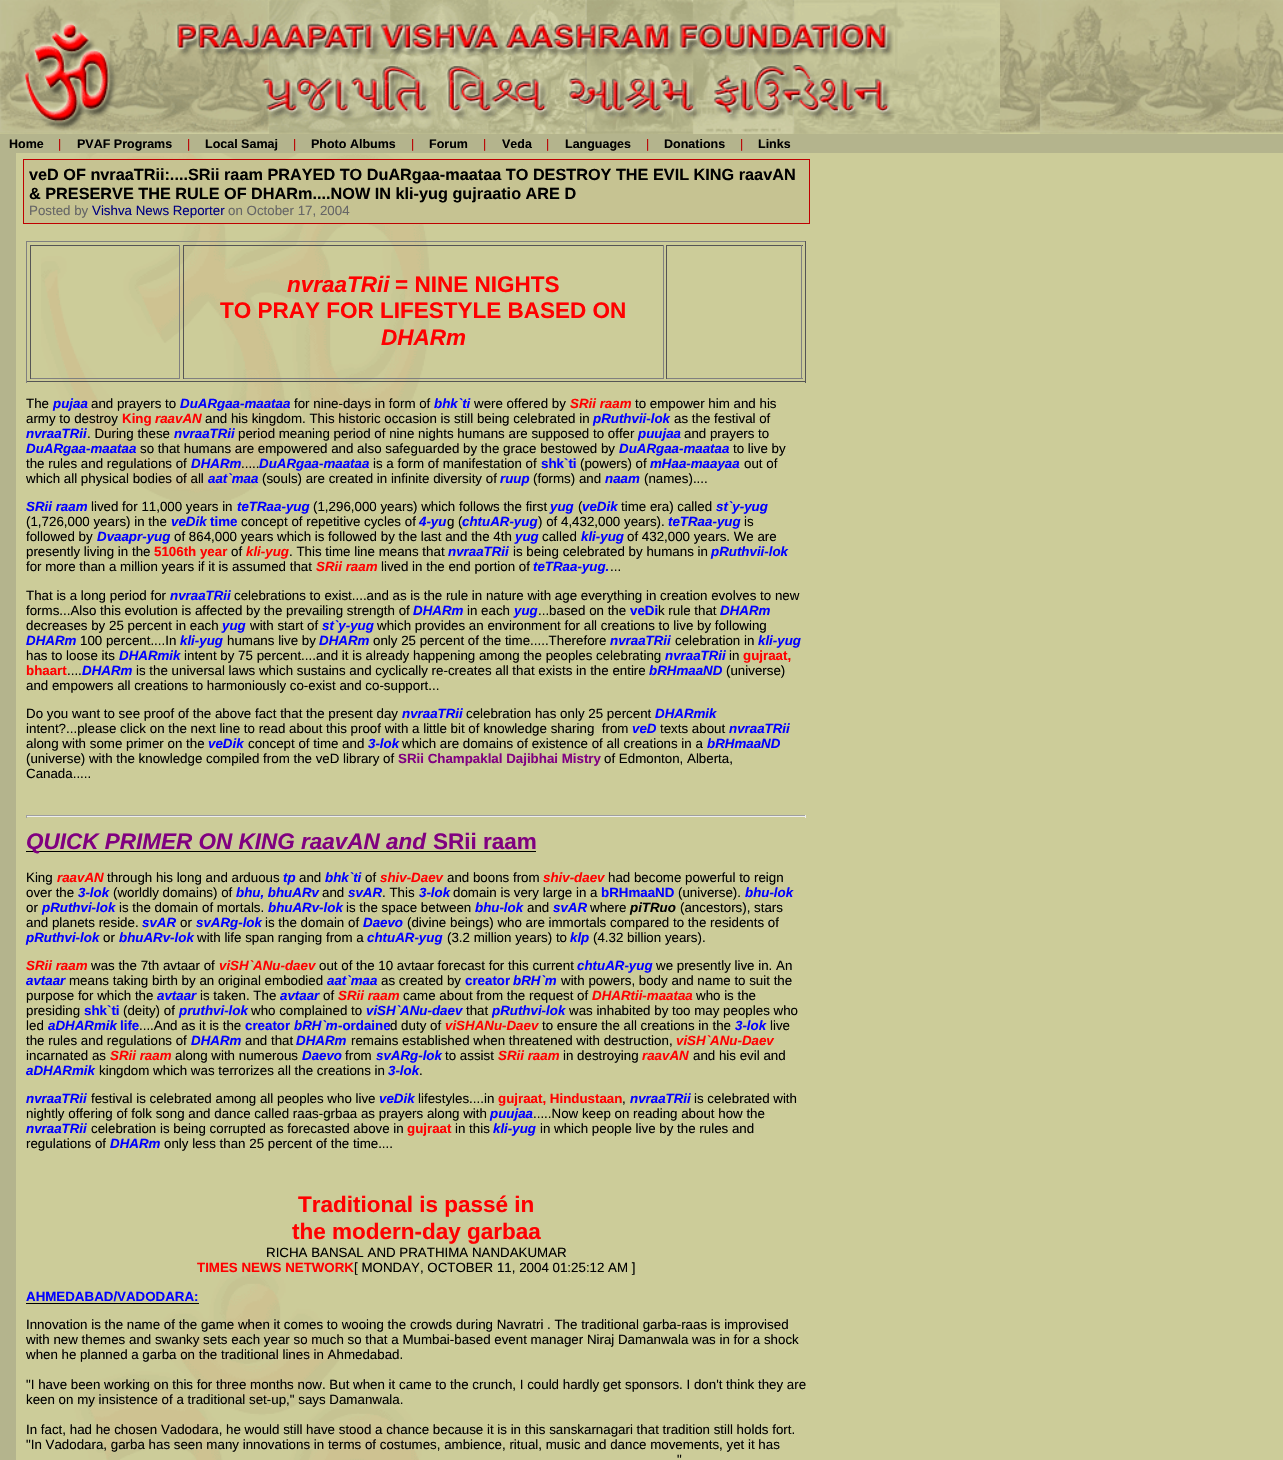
#include "include/core/SkBlurTypes.h"
#include "include/core/SkCanvas.h"
#include "include/core/SkData.h"
#include "include/core/SkFont.h"
#include "include/core/SkFontMgr.h"
#include "include/core/SkImage.h"
#include "include/core/SkMaskFilter.h"
#include "include/core/SkPaint.h"
#include "include/core/SkPathBuilder.h"
#include "include/core/SkTextBlob.h"
#include "include/effects/SkDashPathEffect.h"
#include "include/effects/SkGradientShader.h"
#include "include/utils/SkParsePath.h"

extern sk_sp<SkFontMgr> fontMgr;

static SkFont font(const char* family, int weight, float size, bool italic = false) {
    SkFontStyle style(weight, SkFontStyle::kNormal_Width,
        italic ? SkFontStyle::kItalic_Slant : SkFontStyle::kUpright_Slant);
    SkFont result(fontMgr->matchFamilyStyle(family, style), size);
    result.setSubpixel(true);
    return result;
}

static void drawLabel(SkCanvas* canvas, const char* s, float x, float y, const SkFont& font, SkColor color) {
    SkPaint ink(SkColor4f::FromColor(color));
    ink.setAntiAlias(true);
    canvas->drawString(s, x, y, font, ink);
}

static void fillRect(SkCanvas* canvas, float x, float y, float w, float h, SkColor color) {
    SkPaint ink(SkColor4f::FromColor(color));
    ink.setAntiAlias(true);
    canvas->drawRect(SkRect::MakeXYWH(x, y, w, h), ink);
}

static void drawPhoto(SkCanvas* canvas, const char* path, float x, float y, float w, float h) {
    auto image = SkImages::DeferredFromEncodedData(SkData::MakeFromFileName(path));
    canvas->drawImageRect(image, SkRect::MakeXYWH(x, y, w, h), SkSamplingOptions());
}

void draw(SkCanvas* canvas) {
    SkPaint paint;
    paint.setAntiAlias(true);
    canvas->clear(0xFFCCCC99);
    drawPhoto(canvas, "assets/img1.png", 41, 133, 389, 1327);
    drawPhoto(canvas, "assets/img2.png", 0, 0, 1283, 134);
    drawPhoto(canvas, "assets/img3.png", 0, 20, 138, 111);
    drawPhoto(canvas, "assets/img4.png", 137, 0, 863, 134);
    fillRect(canvas, 0, 134, 1283, 19, 0xFFB4B48D);
    SkFont font1 = font("Liberation Sans", 700, 12.5f);
    drawLabel(canvas, "Home", 9, 148, font1, 0xFF000000);
    SkFont font2 = font("Liberation Sans", 400, 12.5f);
    drawLabel(canvas, "|", 58, 148, font2, 0xFFBB0000);
    drawLabel(canvas, "PVAF Programs", 77, 148, font1, 0xFF000000);
    drawLabel(canvas, "|", 187, 148, font2, 0xFFBB0000);
    drawLabel(canvas, "Local Samaj", 205, 148, font1, 0xFF000000);
    drawLabel(canvas, "|", 293, 148, font2, 0xFFBB0000);
    drawLabel(canvas, "Photo Albums", 311, 148, font1, 0xFF000000);
    drawLabel(canvas, "|", 411, 148, font2, 0xFFBB0000);
    drawLabel(canvas, "Forum", 429, 148, font1, 0xFF000000);
    drawLabel(canvas, "|", 483, 148, font2, 0xFFBB0000);
    drawLabel(canvas, "Veda", 502, 148, font1, 0xFF000000);
    drawLabel(canvas, "|", 546, 148, font2, 0xFFBB0000);
    drawLabel(canvas, "Languages", 565, 148, font1, 0xFF000000);
    drawLabel(canvas, "|", 646, 148, font2, 0xFFBB0000);
    drawLabel(canvas, "Donations", 664, 148, font1, 0xFF000000);
    drawLabel(canvas, "|", 740, 148, font2, 0xFFBB0000);
    drawLabel(canvas, "Links", 758, 148, font1, 0xFF000000);
    fillRect(canvas, 0, 153, 16, 1307, 0xFFB4B48D);
    paint.setColor(0xFFC6C392);
    canvas->drawRect(SkRect::MakeXYWH(23.5f, 159.5f, 786, 64), paint);
    paint.setStroke(true);
    paint.setStrokeWidth(1);
    paint.setColor(0xFFBF0000);
    canvas->drawRect(SkRect::MakeXYWH(23.5f, 159.5f, 786, 64), paint);
    SkFont font3 = font("Liberation Sans", 700, 16.25f);
    drawLabel(canvas, "veD OF nvraaTRii:....SRii raam PRAYED TO DuARgaa-maataa TO DESTROY THE EVIL KING raavAN", 29, 180, font3, 0xFF000000);
    drawLabel(canvas, "& PRESERVE THE RULE OF DHARm....NOW IN kli-yug gujraatio ARE D", 29, 199, font3, 0xFF000000);
    SkFont font4 = font("Liberation Sans", 400, 13.33f);
    drawLabel(canvas, "Posted by", 29, 215, font4, 0xFF666666);
    drawLabel(canvas, "Vishva News Reporter", 92, 215, font4, 0xFF000080);
    drawLabel(canvas, "on October 17, 2004", 228, 215, font4, 0xFF666666);
    fillRect(canvas, 26, 241, 780, 1, 0xFF808080);
    fillRect(canvas, 805, 241, 1, 142, 0xFF555555);
    fillRect(canvas, 26, 381, 780, 1, 0xFF555555);
    fillRect(canvas, 26, 241, 1, 142, 0xFF808080);
    fillRect(canvas, 30, 245, 150, 1, 0xFF555555);
    fillRect(canvas, 179, 245, 1, 134, 0xFF808080);
    fillRect(canvas, 30, 378, 150, 1, 0xFF808080);
    fillRect(canvas, 30, 245, 1, 134, 0xFF555555);
    fillRect(canvas, 183, 245, 481, 1, 0xFF555555);
    fillRect(canvas, 663, 245, 1, 134, 0xFF808080);
    fillRect(canvas, 183, 378, 481, 1, 0xFF808080);
    fillRect(canvas, 183, 245, 1, 134, 0xFF555555);
    SkFont font5 = font("Liberation Sans", 700, 22.5f, true);
    drawLabel(canvas, "nvraaTRii", 287, 292, font5, 0xFFFF0000);
    SkFont font6 = font("Liberation Sans", 700, 22.5f);
    drawLabel(canvas, "= NINE NIGHTS", 395, 292, font6, 0xFFFF0000);
    drawLabel(canvas, "TO PRAY FOR LIFESTYLE BASED ON", 220, 318, font6, 0xFFFF0000);
    drawLabel(canvas, "DHARm", 381, 345, font5, 0xFFFF0000);
    fillRect(canvas, 666, 245, 137, 1, 0xFF555555);
    fillRect(canvas, 801, 245, 1, 134, 0xFF808080);
    fillRect(canvas, 666, 378, 137, 1, 0xFF808080);
    fillRect(canvas, 666, 245, 1, 134, 0xFF555555);
    drawLabel(canvas, "The", 26, 408, font4, 0xFF000000);
    SkFont font7 = font("Liberation Sans", 700, 13.33f, true);
    drawLabel(canvas, "pujaa", 53, 408, font7, 0xFF0000FF);
    drawLabel(canvas, "and prayers to", 91, 408, font4, 0xFF000000);
    drawLabel(canvas, "DuARgaa-maataa", 180, 408, font7, 0xFF0000FF);
    drawLabel(canvas, "for nine-days in form of", 294, 408, font4, 0xFF000000);
    drawLabel(canvas, "bhk`ti", 434, 408, font7, 0xFF0000FF);
    drawLabel(canvas, "were offered by", 474, 408, font4, 0xFF000000);
    drawLabel(canvas, "SRii raam", 570, 408, font7, 0xFFFF0000);
    drawLabel(canvas, "to empower him and his", 635, 408, font4, 0xFF000000);
    drawLabel(canvas, "army to destroy", 26, 423, font4, 0xFF000000);
    SkFont font8 = font("Liberation Sans", 700, 13.33f);
    drawLabel(canvas, "King", 122, 423, font8, 0xFFFF0000);
    drawLabel(canvas, "raavAN", 155, 423, font7, 0xFFFF0000);
    drawLabel(canvas, "and his kingdom. This historic occasion is still being celebrated in", 205, 423, font4, 0xFF000000);
    drawLabel(canvas, "pRuthvii-lok", 593, 423, font7, 0xFF0000FF);
    drawLabel(canvas, "as the festival of", 674, 423, font4, 0xFF000000);
    drawLabel(canvas, "nvraaTRii", 26, 438, font7, 0xFF0000FF);
    drawLabel(canvas, ". During these", 87, 438, font4, 0xFF000000);
    drawLabel(canvas, "nvraaTRii", 174, 438, font7, 0xFF0000FF);
    drawLabel(canvas, "period meaning period of nine nights humans are supposed to offer", 238, 438, font4, 0xFF000000);
    drawLabel(canvas, "puujaa", 638, 438, font7, 0xFF0000FF);
    drawLabel(canvas, "and prayers to", 684, 438, font4, 0xFF000000);
    drawLabel(canvas, "DuARgaa-maataa", 26, 453, font7, 0xFF0000FF);
    drawLabel(canvas, "so that humans are empowered and also safeguarded by the grace bestowed by", 140, 453, font4, 0xFF000000);
    drawLabel(canvas, "DuARgaa-maataa", 619, 453, font7, 0xFF0000FF);
    drawLabel(canvas, "to live by", 733, 453, font4, 0xFF000000);
    drawLabel(canvas, "the rules and regulations of", 26, 468, font4, 0xFF000000);
    drawLabel(canvas, "DHARm", 191, 468, font7, 0xFF0000FF);
    drawLabel(canvas, ".....", 241, 468, font4, 0xFF000000);
    drawLabel(canvas, "DuARgaa-maataa", 259, 468, font7, 0xFF0000FF);
    drawLabel(canvas, "is a form of manifestation of", 373, 468, font4, 0xFF000000);
    drawLabel(canvas, "shk`ti", 541, 468, font8, 0xFF0000FF);
    drawLabel(canvas, "(powers) of", 580, 468, font4, 0xFF000000);
    drawLabel(canvas, "mHaa-maayaa", 650, 468, font7, 0xFF0000FF);
    drawLabel(canvas, "out of", 744, 468, font4, 0xFF000000);
    drawLabel(canvas, "which all physical bodies of all", 26, 483, font4, 0xFF000000);
    drawLabel(canvas, "aat`maa", 208, 483, font7, 0xFF0000FF);
    drawLabel(canvas, "(souls) are created in infinite diversity of", 262, 483, font4, 0xFF000000);
    drawLabel(canvas, "ruup", 500, 483, font7, 0xFF0000FF);
    drawLabel(canvas, "(forms) and", 533, 483, font4, 0xFF000000);
    drawLabel(canvas, "naam", 605, 483, font7, 0xFF0000FF);
    drawLabel(canvas, "(names)....", 644, 483, font4, 0xFF000000);
    drawLabel(canvas, "SRii raam", 26, 511, font7, 0xFF0000FF);
    drawLabel(canvas, "lived for 11,000 years in", 91, 511, font4, 0xFF000000);
    drawLabel(canvas, "teTRaa-yug", 237, 511, font7, 0xFF0000FF);
    drawLabel(canvas, "(1,296,000 years) which follows the first", 313, 511, font4, 0xFF000000);
    drawLabel(canvas, "yug", 550, 511, font7, 0xFF0000FF);
    drawLabel(canvas, "(", 578, 511, font4, 0xFF000000);
    drawLabel(canvas, "veDik", 582, 511, font7, 0xFF0000FF);
    drawLabel(canvas, "time era) called", 621, 511, font4, 0xFF000000);
    drawLabel(canvas, "st`y-yug", 716, 511, font7, 0xFF0000FF);
    drawLabel(canvas, "(1,726,000 years) in the", 26, 526, font4, 0xFF000000);
    drawLabel(canvas, "veDik", 171, 526, font7, 0xFF0000FF);
    drawLabel(canvas, "time", 210, 526, font8, 0xFF0000FF);
    drawLabel(canvas, "concept of repetitive cycles of", 241, 526, font4, 0xFF000000);
    drawLabel(canvas, "4-yu", 419, 526, font7, 0xFF0000FF);
    drawLabel(canvas, "g (", 447, 526, font4, 0xFF000000);
    drawLabel(canvas, "chtuAR-yug", 462, 526, font7, 0xFF0000FF);
    drawLabel(canvas, ") of 4,432,000 years).", 538, 526, font4, 0xFF000000);
    drawLabel(canvas, "teTRaa-yug", 668, 526, font7, 0xFF0000FF);
    drawLabel(canvas, "is", 744, 526, font4, 0xFF000000);
    drawLabel(canvas, "followed by", 26, 541, font4, 0xFF000000);
    drawLabel(canvas, "Dvaapr-yug", 97, 541, font7, 0xFF0000FF);
    drawLabel(canvas, "of 864,000 years which is followed by the last and the 4th", 174, 541, font4, 0xFF000000);
    drawLabel(canvas, "yug", 515, 541, font7, 0xFF0000FF);
    drawLabel(canvas, "called", 542, 541, font4, 0xFF000000);
    drawLabel(canvas, "kli-yug", 581, 541, font7, 0xFF0000FF);
    drawLabel(canvas, "of 432,000 years. We are", 627, 541, font4, 0xFF000000);
    drawLabel(canvas, "presently living in the", 26, 556, font4, 0xFF000000);
    drawLabel(canvas, "5106th year", 154, 556, font8, 0xFFFF0000);
    drawLabel(canvas, "of", 231, 556, font4, 0xFF000000);
    drawLabel(canvas, "kli-yug", 246, 556, font7, 0xFFFF0000);
    drawLabel(canvas, ". This time line means that", 289, 556, font4, 0xFF000000);
    drawLabel(canvas, "nvraaTRii", 448, 556, font7, 0xFF0000FF);
    drawLabel(canvas, "is being celebrated by humans in", 513, 556, font4, 0xFF000000);
    drawLabel(canvas, "pRuthvii-lok", 711, 556, font7, 0xFF0000FF);
    drawLabel(canvas, "for more than a million years if it is assumed that", 26, 571, font4, 0xFF000000);
    drawLabel(canvas, "SRii raam", 316, 571, font7, 0xFFFF0000);
    drawLabel(canvas, "lived in the end portion of", 381, 571, font4, 0xFF000000);
    drawLabel(canvas, "teTRaa-yug.", 533, 571, font7, 0xFF0000FF);
    drawLabel(canvas, "...", 610, 571, font4, 0xFF000000);
    drawLabel(canvas, "That is a long period for", 26, 600, font4, 0xFF000000);
    drawLabel(canvas, "nvraaTRii", 170, 600, font7, 0xFF0000FF);
    drawLabel(canvas, "celebrations to exist....and as is the rule in nature with age everything in creation evolves to new", 234, 600, font4, 0xFF000000);
    drawLabel(canvas, "forms...Also this evolution is affected by the prevailing strength of", 26, 615, font4, 0xFF000000);
    drawLabel(canvas, "DHARm", 413, 615, font7, 0xFF0000FF);
    drawLabel(canvas, "in each", 467, 615, font4, 0xFF000000);
    drawLabel(canvas, "yug", 514, 615, font7, 0xFF0000FF);
    drawLabel(canvas, "...based on the", 538, 615, font4, 0xFF000000);
    drawLabel(canvas, "veDi", 630, 615, font8, 0xFF0000FF);
    drawLabel(canvas, "k rule that", 658, 615, font4, 0xFF000000);
    drawLabel(canvas, "DHARm", 720, 615, font7, 0xFF0000FF);
    drawLabel(canvas, "decreases by 25 percent in each", 26, 630, font4, 0xFF000000);
    drawLabel(canvas, "yug", 222, 630, font7, 0xFF0000FF);
    drawLabel(canvas, "with start of", 250, 630, font4, 0xFF000000);
    drawLabel(canvas, "st`y-yug", 322, 630, font7, 0xFF0000FF);
    drawLabel(canvas, "which provides an environment for all creations to live by following", 377, 630, font4, 0xFF000000);
    drawLabel(canvas, "DHARm", 26, 645, font7, 0xFF0000FF);
    drawLabel(canvas, "100 percent....In", 80, 645, font4, 0xFF000000);
    drawLabel(canvas, "kli-yug", 180, 645, font7, 0xFF0000FF);
    drawLabel(canvas, "humans live by", 227, 645, font4, 0xFF000000);
    drawLabel(canvas, "DHARm", 319, 645, font7, 0xFF0000FF);
    drawLabel(canvas, "only 25 percent of the time.....Therefore", 373, 645, font4, 0xFF000000);
    drawLabel(canvas, "nvraaTRii", 610, 645, font7, 0xFF0000FF);
    drawLabel(canvas, "celebration in", 675, 645, font4, 0xFF000000);
    drawLabel(canvas, "kli-yug", 758, 645, font7, 0xFF0000FF);
    drawLabel(canvas, "has to loose its", 26, 660, font4, 0xFF000000);
    drawLabel(canvas, "DHARmik", 119, 660, font7, 0xFF0000FF);
    drawLabel(canvas, "intent by 75 percent....and it is already happening among the peoples celebrating", 184, 660, font4, 0xFF000000);
    drawLabel(canvas, "nvraaTRii", 665, 660, font7, 0xFF0000FF);
    drawLabel(canvas, "in", 729, 660, font4, 0xFF000000);
    drawLabel(canvas, "gujraat,", 743, 660, font8, 0xFFFF0000);
    drawLabel(canvas, "bhaart", 26, 675, font8, 0xFFFF0000);
    drawLabel(canvas, "....", 67, 675, font4, 0xFF000000);
    drawLabel(canvas, "DHARm", 82, 675, font7, 0xFF0000FF);
    drawLabel(canvas, "is the universal laws which sustains and cyclically re-creates all that exists in the entire", 136, 675, font4, 0xFF000000);
    drawLabel(canvas, "bRHmaaND", 649, 675, font7, 0xFF0000FF);
    drawLabel(canvas, "(universe)", 726, 675, font4, 0xFF000000);
    drawLabel(canvas, "and empowers all creations to harmoniously co-exist and co-support...", 26, 690, font4, 0xFF000000);
    drawLabel(canvas, "Do you want to see proof of the above fact that the present day", 26, 718, font4, 0xFF000000);
    drawLabel(canvas, "nvraaTRii", 402, 718, font7, 0xFF0000FF);
    drawLabel(canvas, "celebration has only 25 percent", 466, 718, font4, 0xFF000000);
    drawLabel(canvas, "DHARmik", 655, 718, font7, 0xFF0000FF);
    drawLabel(canvas, "intent?...please click on the next line to read about this proof with a little bit of knowledge sharing  from", 26, 733, font4, 0xFF000000);
    drawLabel(canvas, "veD", 632, 733, font7, 0xFF0000FF);
    drawLabel(canvas, "texts about", 660, 733, font4, 0xFF000000);
    drawLabel(canvas, "nvraaTRii", 729, 733, font7, 0xFF0000FF);
    drawLabel(canvas, "along with some primer on the", 26, 748, font4, 0xFF000000);
    drawLabel(canvas, "veDik", 208, 748, font7, 0xFF0000FF);
    drawLabel(canvas, "concept of time and", 248, 748, font4, 0xFF000000);
    drawLabel(canvas, "3-lok", 368, 748, font7, 0xFF0000FF);
    drawLabel(canvas, "which are domains of existence of all creations in a", 402, 748, font4, 0xFF000000);
    drawLabel(canvas, "bRHmaaND", 707, 748, font7, 0xFF0000FF);
    drawLabel(canvas, "(universe) with the knowledge compiled from the veD library of", 26, 763, font4, 0xFF000000);
    drawLabel(canvas, "SRii Champaklal Dajibhai Mistry", 398, 763, font8, 0xFF800080);
    drawLabel(canvas, "of Edmonton, Alberta,", 604, 763, font4, 0xFF000000);
    drawLabel(canvas, "Canada.....", 26, 778, font4, 0xFF000000);
    fillRect(canvas, 26, 815, 780, 1, 0xFF9F9F9F);
    fillRect(canvas, 805, 815, 1, 3, 0xFFEEEEEE);
    fillRect(canvas, 26, 816, 780, 1, 0xFFEEEEEE);
    fillRect(canvas, 26, 815, 1, 3, 0xFF9F9F9F);
    fillRect(canvas, 26, 851, 510, 1, 0xFF000000);
    drawLabel(canvas, "QUICK PRIMER ON KING raavAN and", 26, 849, font5, 0xFF800080);
    drawLabel(canvas, "SRii raam", 433, 849, font6, 0xFF800080);
    drawLabel(canvas, "King", 26, 882, font4, 0xFF000000);
    drawLabel(canvas, "raavAN", 57, 882, font7, 0xFFFF0000);
    drawLabel(canvas, "through his long and arduous", 107, 882, font4, 0xFF000000);
    drawLabel(canvas, "tp", 283, 882, font7, 0xFF0000FF);
    drawLabel(canvas, "and", 299, 882, font4, 0xFF000000);
    drawLabel(canvas, "bhk`ti", 325, 882, font7, 0xFF0000FF);
    drawLabel(canvas, "of", 365, 882, font4, 0xFF000000);
    drawLabel(canvas, "shiv-Daev", 380, 882, font7, 0xFFFF0000);
    drawLabel(canvas, "and boons from", 447, 882, font4, 0xFF000000);
    drawLabel(canvas, "shiv-daev", 543, 882, font7, 0xFFFF0000);
    drawLabel(canvas, "had become powerful to reign", 608, 882, font4, 0xFF000000);
    drawLabel(canvas, "over the", 26, 897, font4, 0xFF000000);
    drawLabel(canvas, "3-lok", 78, 897, font7, 0xFF0000FF);
    drawLabel(canvas, "(worldly domains) of", 113, 897, font4, 0xFF000000);
    drawLabel(canvas, "bhu, bhuARv", 236, 897, font7, 0xFF0000FF);
    drawLabel(canvas, "and", 322, 897, font4, 0xFF000000);
    drawLabel(canvas, "svAR", 348, 897, font7, 0xFF0000FF);
    drawLabel(canvas, ". This", 382, 897, font4, 0xFF000000);
    drawLabel(canvas, "3-lok", 419, 897, font7, 0xFF0000FF);
    drawLabel(canvas, "domain is very large in a", 453, 897, font4, 0xFF000000);
    drawLabel(canvas, "bRHmaaND", 601, 897, font8, 0xFF0000FF);
    drawLabel(canvas, "(universe).", 678, 897, font4, 0xFF000000);
    drawLabel(canvas, "bhu-lok", 745, 897, font7, 0xFF0000FF);
    drawLabel(canvas, "or", 26, 912, font4, 0xFF000000);
    drawLabel(canvas, "pRuthvi-lok", 42, 912, font7, 0xFF0000FF);
    drawLabel(canvas, "is the domain of mortals.", 119, 912, font4, 0xFF000000);
    drawLabel(canvas, "bhuARv-lok", 268, 912, font7, 0xFF0000FF);
    drawLabel(canvas, "is the space between", 346, 912, font4, 0xFF000000);
    drawLabel(canvas, "bhu-lok", 475, 912, font7, 0xFF0000FF);
    drawLabel(canvas, "and", 527, 912, font4, 0xFF000000);
    drawLabel(canvas, "svAR", 553, 912, font7, 0xFF0000FF);
    drawLabel(canvas, "where", 590, 912, font4, 0xFF000000);
    drawLabel(canvas, "piTRuo", 630, 912, font7, 0xFF000000);
    drawLabel(canvas, "(ancestors), stars", 680, 912, font4, 0xFF000000);
    drawLabel(canvas, "and planets reside.", 26, 927, font4, 0xFF000000);
    drawLabel(canvas, "svAR", 142, 927, font7, 0xFF0000FF);
    drawLabel(canvas, "or", 180, 927, font4, 0xFF000000);
    drawLabel(canvas, "svARg-lok", 196, 927, font7, 0xFF0000FF);
    drawLabel(canvas, "is the domain of", 265, 927, font4, 0xFF000000);
    drawLabel(canvas, "Daevo", 363, 927, font7, 0xFF0000FF);
    drawLabel(canvas, "(divine beings) who are immortals compared to the residents of", 407, 927, font4, 0xFF000000);
    drawLabel(canvas, "pRuthvi-lok", 26, 942, font7, 0xFF0000FF);
    drawLabel(canvas, "or", 103, 942, font4, 0xFF000000);
    drawLabel(canvas, "bhuARv-lok", 119, 942, font7, 0xFF0000FF);
    drawLabel(canvas, "with life span ranging from a", 197, 942, font4, 0xFF000000);
    drawLabel(canvas, "chtuAR-yug", 367, 942, font7, 0xFF0000FF);
    drawLabel(canvas, "(3.2 million years) to", 447, 942, font4, 0xFF000000);
    drawLabel(canvas, "klp", 570, 942, font7, 0xFF0000FF);
    drawLabel(canvas, "(4.32 billion years).", 593, 942, font4, 0xFF000000);
    drawLabel(canvas, "SRii raam", 26, 970, font7, 0xFFFF0000);
    drawLabel(canvas, "was the 7th avtaar of", 91, 970, font4, 0xFF000000);
    drawLabel(canvas, "viSH`ANu-daev", 219, 970, font7, 0xFFFF0000);
    drawLabel(canvas, "out of the 10 avtaar forecast for this current", 319, 970, font4, 0xFF000000);
    drawLabel(canvas, "chtuAR-yug", 577, 970, font7, 0xFF0000FF);
    drawLabel(canvas, "we presently live in. An", 656, 970, font4, 0xFF000000);
    drawLabel(canvas, "avtaar", 26, 985, font7, 0xFF0000FF);
    drawLabel(canvas, "means taking birth by an original embodied", 69, 985, font4, 0xFF000000);
    drawLabel(canvas, "aat`maa", 327, 985, font7, 0xFF0000FF);
    drawLabel(canvas, "as created by", 381, 985, font4, 0xFF000000);
    drawLabel(canvas, "creator", 465, 985, font8, 0xFF0000FF);
    drawLabel(canvas, "bRH`m", 513, 985, font7, 0xFF0000FF);
    drawLabel(canvas, "with powers, body and name to suit the", 561, 985, font4, 0xFF000000);
    drawLabel(canvas, "purpose for which the", 26, 1000, font4, 0xFF000000);
    drawLabel(canvas, "avtaar", 157, 1000, font7, 0xFF0000FF);
    drawLabel(canvas, "is taken. The", 200, 1000, font4, 0xFF000000);
    drawLabel(canvas, "avtaar", 280, 1000, font7, 0xFF0000FF);
    drawLabel(canvas, "of", 323, 1000, font4, 0xFF000000);
    drawLabel(canvas, "SRii raam", 338, 1000, font7, 0xFFFF0000);
    drawLabel(canvas, "came about from the request of", 403, 1000, font4, 0xFF000000);
    drawLabel(canvas, "DHARtii-maataa", 592, 1000, font7, 0xFFFF0000);
    drawLabel(canvas, "who is the", 696, 1000, font4, 0xFF000000);
    drawLabel(canvas, "presiding", 26, 1015, font4, 0xFF000000);
    drawLabel(canvas, "shk`ti", 84, 1015, font8, 0xFF0000FF);
    drawLabel(canvas, "(deity) of", 123, 1015, font4, 0xFF000000);
    drawLabel(canvas, "pruthvi-lok", 179, 1015, font7, 0xFF0000FF);
    drawLabel(canvas, "who complained to", 251, 1015, font4, 0xFF000000);
    drawLabel(canvas, "viSH`ANu-daev", 366, 1015, font7, 0xFF0000FF);
    drawLabel(canvas, "that", 466, 1015, font4, 0xFF000000);
    drawLabel(canvas, "pRuthvi-lok", 492, 1015, font7, 0xFF0000FF);
    drawLabel(canvas, "was inhabited by too may peoples who", 569, 1015, font4, 0xFF000000);
    drawLabel(canvas, "led", 26, 1030, font4, 0xFF000000);
    drawLabel(canvas, "aDHARmik", 48, 1030, font7, 0xFF0000FF);
    drawLabel(canvas, "life", 120, 1030, font8, 0xFF0000FF);
    drawLabel(canvas, "....And as it is the", 139, 1030, font4, 0xFF000000);
    drawLabel(canvas, "creator", 245, 1030, font8, 0xFF0000FF);
    drawLabel(canvas, "bRH`m", 294, 1030, font7, 0xFF0000FF);
    drawLabel(canvas, "-ordaine", 338, 1030, font8, 0xFF0000FF);
    drawLabel(canvas, "d duty of", 390, 1030, font4, 0xFF000000);
    drawLabel(canvas, "viSHANu-Daev", 445, 1030, font7, 0xFFFF0000);
    drawLabel(canvas, "to ensure the all creations in the", 542, 1030, font4, 0xFF000000);
    drawLabel(canvas, "3-lok", 735, 1030, font7, 0xFF0000FF);
    drawLabel(canvas, "live", 770, 1030, font4, 0xFF000000);
    drawLabel(canvas, "the rules and regulations of", 26, 1045, font4, 0xFF000000);
    drawLabel(canvas, "DHARm", 191, 1045, font7, 0xFF0000FF);
    drawLabel(canvas, "and that", 245, 1045, font4, 0xFF000000);
    drawLabel(canvas, "DHARm", 296, 1045, font7, 0xFF0000FF);
    drawLabel(canvas, "remains established when threatened with destruction,", 351, 1045, font4, 0xFF000000);
    drawLabel(canvas, "viSH`ANu-Daev", 676, 1045, font7, 0xFFFF0000);
    drawLabel(canvas, "incarnated as", 26, 1060, font4, 0xFF000000);
    drawLabel(canvas, "SRii raam", 110, 1060, font7, 0xFFFF0000);
    drawLabel(canvas, "along with numerous", 175, 1060, font4, 0xFF000000);
    drawLabel(canvas, "Daevo", 302, 1060, font7, 0xFF0000FF);
    drawLabel(canvas, "from", 345, 1060, font4, 0xFF000000);
    drawLabel(canvas, "svARg-lok", 376, 1060, font7, 0xFF0000FF);
    drawLabel(canvas, "to assist", 445, 1060, font4, 0xFF000000);
    drawLabel(canvas, "SRii raam", 498, 1060, font7, 0xFFFF0000);
    drawLabel(canvas, "in destroying", 563, 1060, font4, 0xFF000000);
    drawLabel(canvas, "raavAN", 642, 1060, font7, 0xFFFF0000);
    drawLabel(canvas, "and his evil and", 693, 1060, font4, 0xFF000000);
    drawLabel(canvas, "aDHARmik", 26, 1075, font7, 0xFF0000FF);
    drawLabel(canvas, "kingdom which was terrorizes all the creations in", 99, 1075, font4, 0xFF000000);
    drawLabel(canvas, "3-lok", 388, 1075, font7, 0xFF0000FF);
    drawLabel(canvas, ".", 419, 1075, font4, 0xFF000000);
    drawLabel(canvas, "nvraaTRii", 26, 1103, font7, 0xFF0000FF);
    drawLabel(canvas, "festival is celebrated among all peoples who live", 91, 1103, font4, 0xFF000000);
    drawLabel(canvas, "veDik", 379, 1103, font7, 0xFF0000FF);
    drawLabel(canvas, "lifestyles....in", 418, 1103, font4, 0xFF000000);
    drawLabel(canvas, "gujraat, Hindustaan", 498, 1103, font8, 0xFFFF0000);
    drawLabel(canvas, ",", 622, 1103, font4, 0xFF000000);
    drawLabel(canvas, "nvraaTRii", 630, 1103, font7, 0xFF0000FF);
    drawLabel(canvas, "is celebrated with", 694, 1103, font4, 0xFF000000);
    drawLabel(canvas, "nightly offering of folk song and dance called raas-grbaa as prayers along with", 26, 1118, font4, 0xFF000000);
    drawLabel(canvas, "puujaa", 490, 1118, font7, 0xFF0000FF);
    drawLabel(canvas, ".....Now keep on reading about how the", 533, 1118, font4, 0xFF000000);
    drawLabel(canvas, "nvraaTRii", 26, 1133, font7, 0xFF0000FF);
    drawLabel(canvas, "celebration is being corrupted as forecasted above in", 91, 1133, font4, 0xFF000000);
    drawLabel(canvas, "gujraat", 407, 1133, font8, 0xFFFF0000);
    drawLabel(canvas, "in this", 455, 1133, font4, 0xFF000000);
    drawLabel(canvas, "kli-yug", 493, 1133, font7, 0xFF0000FF);
    drawLabel(canvas, "in which people live by the rules and", 540, 1133, font4, 0xFF000000);
    drawLabel(canvas, "regulations of", 26, 1148, font4, 0xFF000000);
    drawLabel(canvas, "DHARm", 110, 1148, font7, 0xFF0000FF);
    drawLabel(canvas, "only less than 25 percent of the time....", 164, 1148, font4, 0xFF000000);
    drawLabel(canvas, "Traditional is passé in", 298, 1212, font6, 0xFFFF0000);
    drawLabel(canvas, "the modern-day garbaa", 292, 1239, font6, 0xFFFF0000);
    drawLabel(canvas, "RICHA BANSAL AND PRATHIMA NANDAKUMAR", 266, 1257, font4, 0xFF000000);
    drawLabel(canvas, "TIMES NEWS NETWORK", 197, 1272, font8, 0xFFFF0000);
    drawLabel(canvas, "[ MONDAY, OCTOBER 11, 2004 01:25:12 AM ]", 354, 1272, font4, 0xFF000000);
    drawLabel(canvas, "AHMEDABAD/VADODARA:", 26, 1301, font8, 0xFF0000FF);
    fillRect(canvas, 26, 1303, 173, 1, 0xFF000000);
    drawLabel(canvas, "Innovation is the name of the game when it comes to wooing the", 26, 1329, font4, 0xFF000000);
    drawLabel(canvas, "crowds during Navratri . The traditional garba-raas is improvised", 410, 1329, font4, 0xFF000000);
    drawLabel(canvas, "with new themes and swanky sets each year so much so that a Mumbai-based event manager Niraj Damanwala was in for a shock", 26, 1344, font4, 0xFF000000);
    drawLabel(canvas, "when he planned a garba on the traditional lines in Ahmedabad.", 26, 1359, font4, 0xFF000000);
    drawLabel(canvas, "\"I have been working on this for three months now. But when it came to the crunch, I could hardly get sponsors. I don't think they are", 26, 1389, font4, 0xFF000000);
    drawLabel(canvas, "keen on my insistence of a traditional set-up,\" says Damanwala.", 26, 1404, font4, 0xFF000000);
    drawLabel(canvas, "In fact, had he chosen Vadodara, he would still have stood a chance because it is in this sanskarnagari that tradition still holds fort.", 26, 1434, font4, 0xFF000000);
    drawLabel(canvas, "\"In Vadodara, garba has seen many innovations in terms of costumes, ambience, ritual, music and dance movements, yet it has", 26, 1449, font4, 0xFF000000);
    drawLabel(canvas, "\"", 677, 1464, font4, 0xFF000000);
}
